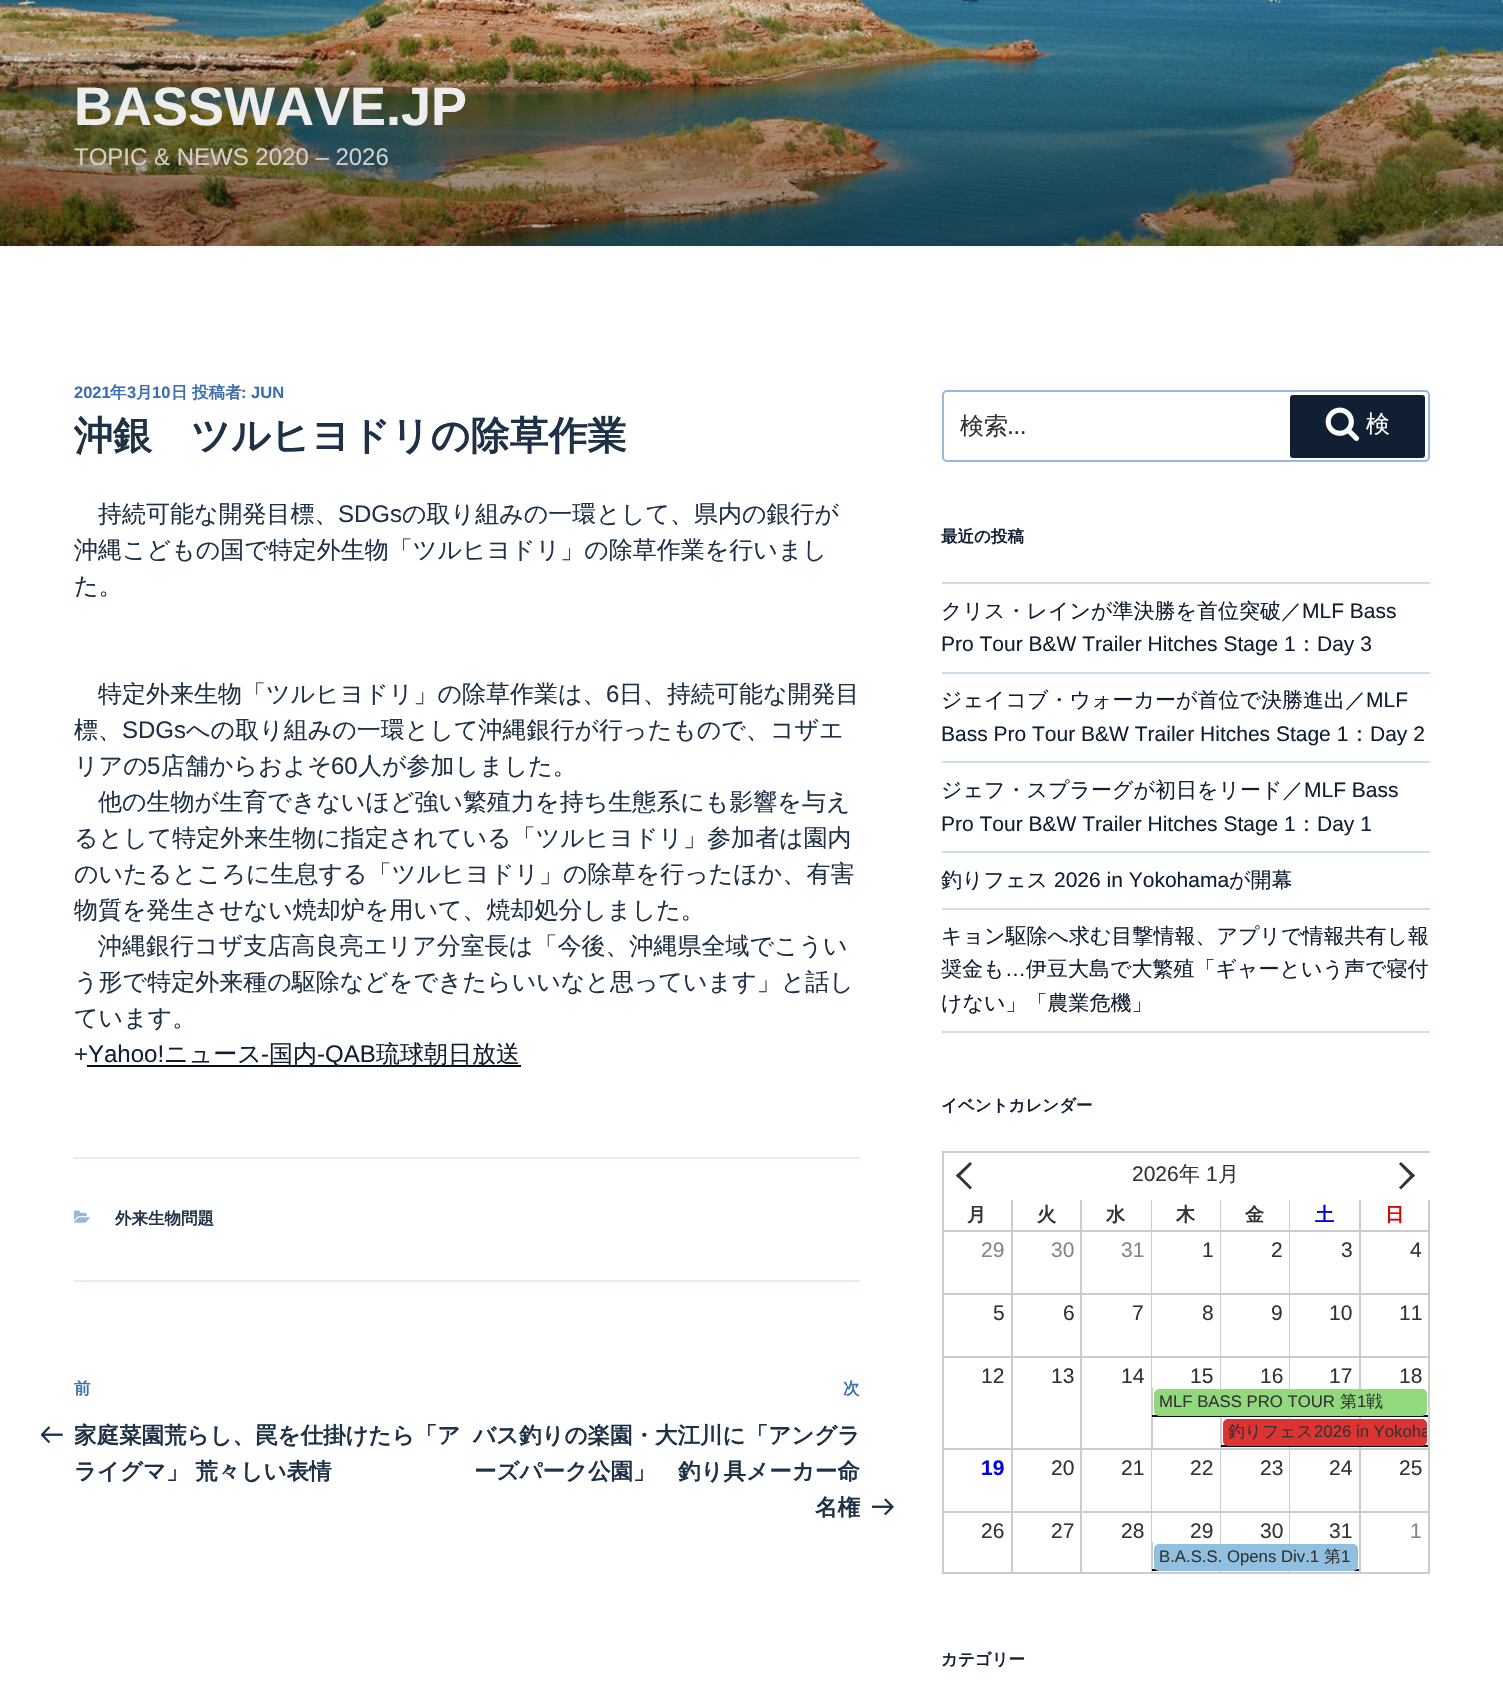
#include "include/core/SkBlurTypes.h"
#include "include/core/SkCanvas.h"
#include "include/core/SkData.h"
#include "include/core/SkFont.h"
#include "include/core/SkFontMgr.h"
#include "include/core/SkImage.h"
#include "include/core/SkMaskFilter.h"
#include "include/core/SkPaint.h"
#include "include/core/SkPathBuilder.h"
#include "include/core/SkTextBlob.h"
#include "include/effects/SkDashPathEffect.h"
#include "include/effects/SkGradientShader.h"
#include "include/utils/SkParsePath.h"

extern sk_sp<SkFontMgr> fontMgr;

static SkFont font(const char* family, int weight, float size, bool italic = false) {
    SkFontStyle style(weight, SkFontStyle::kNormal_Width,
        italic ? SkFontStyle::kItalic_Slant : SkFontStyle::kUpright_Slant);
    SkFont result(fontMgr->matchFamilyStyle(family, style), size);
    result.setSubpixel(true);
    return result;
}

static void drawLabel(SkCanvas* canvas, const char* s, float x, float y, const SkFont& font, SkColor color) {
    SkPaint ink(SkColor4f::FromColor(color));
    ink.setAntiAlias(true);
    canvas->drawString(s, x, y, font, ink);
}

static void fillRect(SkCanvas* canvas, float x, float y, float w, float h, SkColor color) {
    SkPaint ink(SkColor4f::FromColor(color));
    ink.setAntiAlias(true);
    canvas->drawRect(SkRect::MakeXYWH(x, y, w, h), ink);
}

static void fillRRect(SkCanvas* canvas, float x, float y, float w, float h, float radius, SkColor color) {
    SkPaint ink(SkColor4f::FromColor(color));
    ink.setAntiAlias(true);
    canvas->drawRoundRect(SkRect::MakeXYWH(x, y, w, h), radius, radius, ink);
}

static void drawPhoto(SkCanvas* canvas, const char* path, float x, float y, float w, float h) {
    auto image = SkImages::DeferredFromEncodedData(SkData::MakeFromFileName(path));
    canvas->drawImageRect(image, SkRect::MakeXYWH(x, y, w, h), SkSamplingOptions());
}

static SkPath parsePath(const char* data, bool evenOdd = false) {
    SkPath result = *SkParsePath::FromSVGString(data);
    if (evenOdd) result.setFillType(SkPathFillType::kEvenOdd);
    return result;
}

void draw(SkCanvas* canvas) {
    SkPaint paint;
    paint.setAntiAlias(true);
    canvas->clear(0xFFFFFFFF);
    fillRect(canvas, 0, 246, 1503, 2, 0xFFF7FAFC);
    drawPhoto(canvas, "assets/img1.png", 0, 0, 1503, 246);
    SkFont font1 = font("Liberation Sans", 700, 54);
    drawLabel(canvas, "BASSWAVE.JP", 74, 125, font1, 0xFFEDEDED);
    SkFont font2 = font("Liberation Sans", 400, 24);
    drawLabel(canvas, "TOPIC & NEWS 2020 – 2026", 74, 165, font2, 0xFFD0D0CA);
    SkFont font3 = font("Liberation Sans", 700, 16.5f);
    drawLabel(canvas, "2021", 74, 398, font3, 0xFF3B6FB0);
    SkFont font4 = font("WenQuanYi Zen Hei", 700, 16.5f);
    drawLabel(canvas, "年", 110, 398, font4, 0xFF3B6FB0);
    drawLabel(canvas, "3", 127, 398, font3, 0xFF3B6FB0);
    drawLabel(canvas, "月", 136, 398, font4, 0xFF3B6FB0);
    drawLabel(canvas, "10", 152, 398, font3, 0xFF3B6FB0);
    drawLabel(canvas, "日", 171, 398, font4, 0xFF3B6FB0);
    drawLabel(canvas, "投稿者", 192, 398, font4, 0xFF3B6FB0);
    drawLabel(canvas, ": JUN", 241, 398, font3, 0xFF3B6FB0);
    SkFont font5 = font("WenQuanYi Zen Hei", 700, 39);
    drawLabel(canvas, "沖銀　ツルヒヨドリの除草作業", 74, 449, font5, 0xFF1F3147);
    SkFont font6 = font("WenQuanYi Zen Hei", 500, 24);
    drawLabel(canvas, "持続可能な開発目標、", 98, 522, font6, 0xFF1F3147);
    drawLabel(canvas, "SDGs", 338, 522, font2, 0xFF1F3147);
    drawLabel(canvas, "の取り組みの一環として、県内の銀行が", 402, 522, font6, 0xFF1F3147);
    drawLabel(canvas, "沖縄こどもの国で特定外生物「ツルヒヨドリ」の除草作業を行いまし", 74, 558, font6, 0xFF1F3147);
    drawLabel(canvas, "た。", 74, 594, font6, 0xFF1F3147);
    drawLabel(canvas, "特定外来生物「ツルヒヨドリ」の除草作業は、", 98, 702, font6, 0xFF1F3147);
    drawLabel(canvas, "6", 606, 702, font2, 0xFF1F3147);
    drawLabel(canvas, "日、持続可能な開発目", 619, 702, font6, 0xFF1F3147);
    drawLabel(canvas, "標、", 74, 738, font6, 0xFF1F3147);
    drawLabel(canvas, "SDGs", 122, 738, font2, 0xFF1F3147);
    drawLabel(canvas, "への取り組みの一環として沖縄銀行が行ったもので、コザエ", 186, 738, font6, 0xFF1F3147);
    drawLabel(canvas, "リアの", 74, 774, font6, 0xFF1F3147);
    drawLabel(canvas, "5", 147, 774, font2, 0xFF1F3147);
    drawLabel(canvas, "店舗からおよそ", 161, 774, font6, 0xFF1F3147);
    drawLabel(canvas, "60", 331, 774, font2, 0xFF1F3147);
    drawLabel(canvas, "人が参加しました。", 358, 774, font6, 0xFF1F3147);
    drawLabel(canvas, "他の生物が生育できないほど強い繁殖力を持ち生態系にも影響を与え", 98, 810, font6, 0xFF1F3147);
    drawLabel(canvas, "るとして特定外来生物に指定されている「ツルヒヨドリ」参加者は園内", 74, 846, font6, 0xFF1F3147);
    drawLabel(canvas, "のいたるところに生息する「ツルヒヨドリ」の除草を行ったほか、有害", 74, 882, font6, 0xFF1F3147);
    drawLabel(canvas, "物質を発生させない焼却炉を用いて、焼却処分しました。", 74, 918, font6, 0xFF1F3147);
    drawLabel(canvas, "沖縄銀行コザ支店高良亮エリア分室長は「今後、沖縄県全域でこうい", 98, 954, font6, 0xFF1F3147);
    drawLabel(canvas, "う形で特定外来種の駆除などをできたらいいなと思っています」と話し", 74, 990, font6, 0xFF1F3147);
    drawLabel(canvas, "ています。", 74, 1026, font6, 0xFF1F3147);
    drawLabel(canvas, "+", 74, 1062, font2, 0xFF1F3147);
    drawLabel(canvas, "Yahoo!", 88, 1062, font2, 0xFF111F32);
    drawLabel(canvas, "ニュース", 164, 1062, font6, 0xFF111F32);
    drawLabel(canvas, "-", 261, 1062, font2, 0xFF111F32);
    fillRect(canvas, 87, 1065, 434, 2, 0xFF080F17);
    drawLabel(canvas, "国内", 269, 1062, font6, 0xFF111F32);
    drawLabel(canvas, "-QAB", 317, 1062, font2, 0xFF111F32);
    drawLabel(canvas, "琉球朝日放送", 376, 1062, font6, 0xFF111F32);
    fillRect(canvas, 74, 1157, 786, 2, 0xFFE4ECF6);
    fillRect(canvas, 74, 1280, 786, 2, 0xFFE4ECF6);
    drawPhoto(canvas, "assets/img2.png", 74, 1210, 16, 13);
    drawLabel(canvas, "外来生物問題", 115, 1224, font4, 0xFF1F3147);
    drawLabel(canvas, "前", 74, 1394, font4, 0xFF3B6FB0);
    drawPhoto(canvas, "assets/img3.png", 41, 1426, 22, 18);
    SkFont font7 = font("WenQuanYi Zen Hei", 700, 22.5f);
    drawLabel(canvas, "家庭菜園荒らし、罠を仕掛けたら「ア", 74, 1443, font7, 0xFF1F3147);
    drawLabel(canvas, "ライグマ」 荒々しい表情", 74, 1479, font7, 0xFF1F3147);
    drawLabel(canvas, "次", 843, 1394, font4, 0xFF3B6FB0);
    drawLabel(canvas, "バス釣りの楽園・大江川に「アングラ", 473, 1443, font7, 0xFF1F3147);
    drawLabel(canvas, "ーズパーク公園」　釣り具メーカー命", 474, 1479, font7, 0xFF1F3147);
    drawLabel(canvas, "名権", 815, 1515, font7, 0xFF1F3147);
    drawPhoto(canvas, "assets/img4.png", 872, 1498, 22, 18);
    paint.setStroke(true);
    paint.setStrokeWidth(2);
    paint.setColor(0xFF98B7DD);
    canvas->drawRoundRect(SkRect::MakeXYWH(943, 391, 486, 70), 4, 4, paint);
    drawLabel(canvas, "検索", 960, 434, font6, 0xFF333333);
    SkFont font8 = font("Libre Franklin", 400, 24);
    drawLabel(canvas, "…", 1008, 434, font8, 0xFF333333);
    fillRRect(canvas, 1290, 395, 135, 63, 3, 0xFF111F32);
    drawPhoto(canvas, "assets/img5.png", 1325, 407, 34, 34);
    drawLabel(canvas, "検", 1366, 432, font6, 0xFFFFFFFF);
    drawLabel(canvas, "最近の投稿", 941, 542, font4, 0xFF111F32);
    fillRect(canvas, 942, 582, 488, 2, 0xFFCDDCEE);
    fillRect(canvas, 942, 672, 488, 2, 0xFFCDDCEE);
    SkFont font9 = font("WenQuanYi Zen Hei", 500, 21);
    drawLabel(canvas, "クリス・レインが準決勝を首位突破／", 941, 618, font9, 0xFF111F32);
    SkFont font10 = font("Liberation Sans", 400, 21);
    drawLabel(canvas, "MLF Bass", 1302, 618, font10, 0xFF111F32);
    drawLabel(canvas, "Pro Tour B&W Trailer Hitches Stage 1", 941, 651, font10, 0xFF111F32);
    drawLabel(canvas, "：", 1296, 651, font9, 0xFF111F32);
    drawLabel(canvas, "Day 3", 1317, 651, font10, 0xFF111F32);
    fillRect(canvas, 942, 761, 488, 2, 0xFFCDDCEE);
    drawLabel(canvas, "ジェイコブ・ウォーカーが首位で決勝進出／", 941, 707, font9, 0xFF111F32);
    drawLabel(canvas, "MLF", 1366, 707, font10, 0xFF111F32);
    drawLabel(canvas, "Bass Pro Tour B&W Trailer Hitches Stage 1", 941, 741, font10, 0xFF111F32);
    drawLabel(canvas, "：", 1349, 741, font9, 0xFF111F32);
    drawLabel(canvas, "Day 2", 1370, 741, font10, 0xFF111F32);
    fillRect(canvas, 942, 851, 488, 2, 0xFFCDDCEE);
    drawLabel(canvas, "ジェフ・スプラーグが初日をリード／", 941, 797, font9, 0xFF111F32);
    drawLabel(canvas, "MLF Bass", 1304, 797, font10, 0xFF111F32);
    drawLabel(canvas, "Pro Tour B&W Trailer Hitches Stage 1", 941, 831, font10, 0xFF111F32);
    drawLabel(canvas, "：", 1296, 831, font9, 0xFF111F32);
    drawLabel(canvas, "Day 1", 1317, 831, font10, 0xFF111F32);
    fillRect(canvas, 942, 908, 488, 2, 0xFFCDDCEE);
    drawLabel(canvas, "釣りフェス", 941, 887, font9, 0xFF111F32);
    drawLabel(canvas, "2026 in Yokohama", 1054, 887, font10, 0xFF111F32);
    drawLabel(canvas, "が開幕", 1229, 887, font9, 0xFF111F32);
    fillRect(canvas, 942, 1031, 488, 2, 0xFFCDDCEE);
    drawLabel(canvas, "キョン駆除へ求む目撃情報、アプリで情報共有し報", 941, 943, font9, 0xFF111F32);
    drawLabel(canvas, "奨金も", 941, 976, font9, 0xFF111F32);
    drawLabel(canvas, "…", 1005, 976, font10, 0xFF111F32);
    drawLabel(canvas, "伊豆大島で大繁殖「ギャーという声で寝付", 1026, 976, font9, 0xFF111F32);
    drawLabel(canvas, "けない」「農業危機」", 941, 1010, font9, 0xFF111F32);
    drawLabel(canvas, "イベントカレンダー", 941, 1111, font4, 0xFF111F32);
    fillRect(canvas, 942, 1151, 488, 2, 0xFFCCCCCC);
    fillRect(canvas, 942, 1572, 488, 2, 0xFFCCCCCC);
    fillRect(canvas, 942, 1151, 2, 423, 0xFFCCCCCC);
    paint.setStroke(false);
    paint.setColor(0xFF333333);
    canvas->drawPath(parsePath("M958 1173.5L972 1187.5L970 1189.5L956 1175.5Z"), paint);
    canvas->drawPath(parsePath("M970 1162L972 1164L958 1178L956 1175.5Z"), paint);
    drawLabel(canvas, "2026", 1132, 1181, font10, 0xFF333333);
    drawLabel(canvas, "年", 1179, 1181, font9, 0xFF333333);
    drawLabel(canvas, "1", 1206, 1181, font10, 0xFF333333);
    drawLabel(canvas, "月", 1218, 1181, font9, 0xFF333333);
    canvas->drawPath(parsePath("M1401 1162L1415 1175.5L1412.5 1178L1399 1164Z"), paint);
    canvas->drawPath(parsePath("M1412.5 1173.5L1415 1175.5L1401 1189.5L1399 1187.5Z"), paint);
    fillRect(canvas, 1011, 1200, 2, 30, 0xFFCCCCCC);
    SkFont font11 = font("WenQuanYi Zen Hei", 700, 19);
    drawLabel(canvas, "月", 967, 1221, font11, 0xFF333333);
    fillRect(canvas, 1080, 1200, 2, 30, 0xFFCCCCCC);
    drawLabel(canvas, "火", 1037, 1221, font11, 0xFF333333);
    fillRect(canvas, 1151, 1200, 1, 30, 0xFFCCCCCC);
    drawLabel(canvas, "水", 1106, 1221, font11, 0xFF333333);
    fillRect(canvas, 1220, 1200, 1, 30, 0xFFCCCCCC);
    drawLabel(canvas, "木", 1176, 1221, font11, 0xFF333333);
    fillRect(canvas, 1289, 1200, 1, 30, 0xFFCCCCCC);
    drawLabel(canvas, "金", 1245, 1221, font11, 0xFF333333);
    fillRect(canvas, 1359, 1200, 2, 30, 0xFFCCCCCC);
    drawLabel(canvas, "土", 1315, 1221, font11, 0xFF0000DD);
    fillRect(canvas, 1428, 1200, 2, 30, 0xFFCCCCCC);
    drawLabel(canvas, "日", 1385, 1221, font11, 0xFFDD0000);
    fillRect(canvas, 944, 1230, 486, 2, 0xFFCCCCCC);
    fillRect(canvas, 1011, 1230, 2, 63, 0xFFCCCCCC);
    drawLabel(canvas, "29", 981, 1257, font10, 0xFF858585);
    fillRect(canvas, 1080, 1230, 2, 63, 0xFFCCCCCC);
    drawLabel(canvas, "30", 1051, 1257, font10, 0xFF858585);
    fillRect(canvas, 1151, 1230, 1, 63, 0xFFCCCCCC);
    drawLabel(canvas, "31", 1121, 1257, font10, 0xFF858585);
    fillRect(canvas, 1220, 1230, 1, 63, 0xFFCCCCCC);
    drawLabel(canvas, "1", 1202, 1257, font10, 0xFF333333);
    fillRect(canvas, 1289, 1230, 1, 63, 0xFFCCCCCC);
    drawLabel(canvas, "2", 1271, 1257, font10, 0xFF333333);
    fillRect(canvas, 1359, 1230, 2, 63, 0xFFCCCCCC);
    drawLabel(canvas, "3", 1341, 1257, font10, 0xFF333333);
    fillRect(canvas, 1428, 1230, 2, 63, 0xFFCCCCCC);
    drawLabel(canvas, "4", 1410, 1257, font10, 0xFF333333);
    fillRect(canvas, 944, 1293, 486, 2, 0xFFCCCCCC);
    fillRect(canvas, 1011, 1293, 2, 63, 0xFFCCCCCC);
    drawLabel(canvas, "5", 993, 1320, font10, 0xFF333333);
    fillRect(canvas, 1080, 1293, 2, 63, 0xFFCCCCCC);
    drawLabel(canvas, "6", 1063, 1320, font10, 0xFF333333);
    fillRect(canvas, 1151, 1293, 1, 63, 0xFFCCCCCC);
    drawLabel(canvas, "7", 1132, 1320, font10, 0xFF333333);
    fillRect(canvas, 1220, 1293, 1, 63, 0xFFCCCCCC);
    drawLabel(canvas, "8", 1202, 1320, font10, 0xFF333333);
    fillRect(canvas, 1289, 1293, 1, 63, 0xFFCCCCCC);
    drawLabel(canvas, "9", 1271, 1320, font10, 0xFF333333);
    fillRect(canvas, 1359, 1293, 2, 63, 0xFFCCCCCC);
    drawLabel(canvas, "10", 1329, 1320, font10, 0xFF333333);
    fillRect(canvas, 1428, 1293, 2, 63, 0xFFCCCCCC);
    drawLabel(canvas, "11", 1399, 1320, font10, 0xFF333333);
    fillRect(canvas, 944, 1356, 486, 2, 0xFFCCCCCC);
    fillRect(canvas, 1011, 1356, 2, 92, 0xFFCCCCCC);
    drawLabel(canvas, "12", 981, 1383, font10, 0xFF333333);
    fillRect(canvas, 1080, 1356, 2, 92, 0xFFCCCCCC);
    drawLabel(canvas, "13", 1051, 1383, font10, 0xFF333333);
    fillRect(canvas, 1151, 1356, 1, 32, 0xFFCCCCCC);
    drawLabel(canvas, "14", 1121, 1383, font10, 0xFF333333);
    fillRect(canvas, 1220, 1356, 1, 62, 0xFFCCCCCC);
    drawLabel(canvas, "15", 1190, 1383, font10, 0xFF333333);
    fillRect(canvas, 1289, 1356, 1, 92, 0xFFCCCCCC);
    drawLabel(canvas, "16", 1260, 1383, font10, 0xFF333333);
    fillRect(canvas, 1359, 1356, 2, 92, 0xFFCCCCCC);
    drawLabel(canvas, "17", 1329, 1383, font10, 0xFF333333);
    fillRect(canvas, 1428, 1356, 2, 92, 0xFFCCCCCC);
    drawLabel(canvas, "18", 1399, 1383, font10, 0xFF333333);
    fillRect(canvas, 1151, 1388, 2, 60, 0xFFCCCCCC);
    fillRect(canvas, 1152, 1415, 276, 2, 0xFF080F17);
    fillRRect(canvas, 1154, 1389, 273, 27, 5, 0xFF92D87D);
    SkFont font12 = font("Liberation Sans", 400, 16.75f);
    drawLabel(canvas, "MLF BASS PRO TOUR", 1159, 1407, font12, 0xFF333333);
    SkFont font13 = font("WenQuanYi Zen Hei", 500, 16.75f);
    drawLabel(canvas, "第", 1340, 1407, font13, 0xFF333333);
    drawLabel(canvas, "1", 1357, 1407, font12, 0xFF333333);
    drawLabel(canvas, "戦", 1366, 1407, font13, 0xFF333333);
    fillRect(canvas, 1220, 1418, 2, 30, 0xFFCCCCCC);
    fillRect(canvas, 1221, 1445, 207, 2, 0xFF080F17);
    fillRRect(canvas, 1223, 1419, 204, 27, 5, 0xFFDD3333);
    drawLabel(canvas, "釣りフェス", 1228, 1437, font13, 0xFF333333);
    canvas->save();
    canvas->clipPath(parsePath("M1228 1419H1422C1425 1419 1427 1421 1427 1424V1441C1427 1444 1425 1446 1422 1446H1228C1225 1446 1223 1444 1223 1441V1424C1223 1421 1225 1419 1228 1419Z"), true);
    drawLabel(canvas, "2026 in Yokoha", 1314, 1437, font12, 0xFF333333);
    canvas->restore();
    fillRect(canvas, 944, 1448, 486, 2, 0xFFCCCCCC);
    fillRect(canvas, 1011, 1448, 2, 63, 0xFFCCCCCC);
    SkFont font14 = font("Liberation Sans", 700, 21);
    drawLabel(canvas, "19", 981, 1475, font14, 0xFF0000DD);
    fillRect(canvas, 1080, 1448, 2, 63, 0xFFCCCCCC);
    drawLabel(canvas, "20", 1051, 1475, font10, 0xFF333333);
    fillRect(canvas, 1151, 1448, 1, 63, 0xFFCCCCCC);
    drawLabel(canvas, "21", 1121, 1475, font10, 0xFF333333);
    fillRect(canvas, 1220, 1448, 1, 63, 0xFFCCCCCC);
    drawLabel(canvas, "22", 1190, 1475, font10, 0xFF333333);
    fillRect(canvas, 1289, 1448, 1, 63, 0xFFCCCCCC);
    drawLabel(canvas, "23", 1260, 1475, font10, 0xFF333333);
    fillRect(canvas, 1359, 1448, 2, 63, 0xFFCCCCCC);
    drawLabel(canvas, "24", 1329, 1475, font10, 0xFF333333);
    fillRect(canvas, 1428, 1448, 2, 63, 0xFFCCCCCC);
    drawLabel(canvas, "25", 1399, 1475, font10, 0xFF333333);
    fillRect(canvas, 944, 1511, 486, 2, 0xFFCCCCCC);
    fillRect(canvas, 1011, 1511, 2, 61, 0xFFCCCCCC);
    drawLabel(canvas, "26", 981, 1538, font10, 0xFF333333);
    fillRect(canvas, 1080, 1511, 2, 61, 0xFFCCCCCC);
    drawLabel(canvas, "27", 1051, 1538, font10, 0xFF333333);
    fillRect(canvas, 1151, 1511, 1, 31, 0xFFCCCCCC);
    drawLabel(canvas, "28", 1121, 1538, font10, 0xFF333333);
    fillRect(canvas, 1220, 1511, 1, 61, 0xFFCCCCCC);
    drawLabel(canvas, "29", 1190, 1538, font10, 0xFF333333);
    fillRect(canvas, 1289, 1511, 1, 61, 0xFFCCCCCC);
    drawLabel(canvas, "30", 1260, 1538, font10, 0xFF333333);
    fillRect(canvas, 1359, 1511, 2, 61, 0xFFCCCCCC);
    drawLabel(canvas, "31", 1329, 1538, font10, 0xFF333333);
    fillRect(canvas, 1428, 1511, 2, 61, 0xFFCCCCCC);
    drawLabel(canvas, "1", 1410, 1538, font10, 0xFF858585);
    fillRect(canvas, 1151, 1542, 2, 30, 0xFFCCCCCC);
    fillRect(canvas, 1152, 1569, 207, 2, 0xFF080F17);
    fillRRect(canvas, 1154, 1544, 204, 27, 5, 0xFF91BFE0);
    drawLabel(canvas, "B.A.S.S. Opens Div.1", 1159, 1562, font12, 0xFF333333);
    drawLabel(canvas, "第", 1324, 1562, font13, 0xFF333333);
    drawLabel(canvas, "1", 1341, 1562, font12, 0xFF333333);
    drawLabel(canvas, "カテゴリー", 941, 1665, font4, 0xFF111F32);
}
